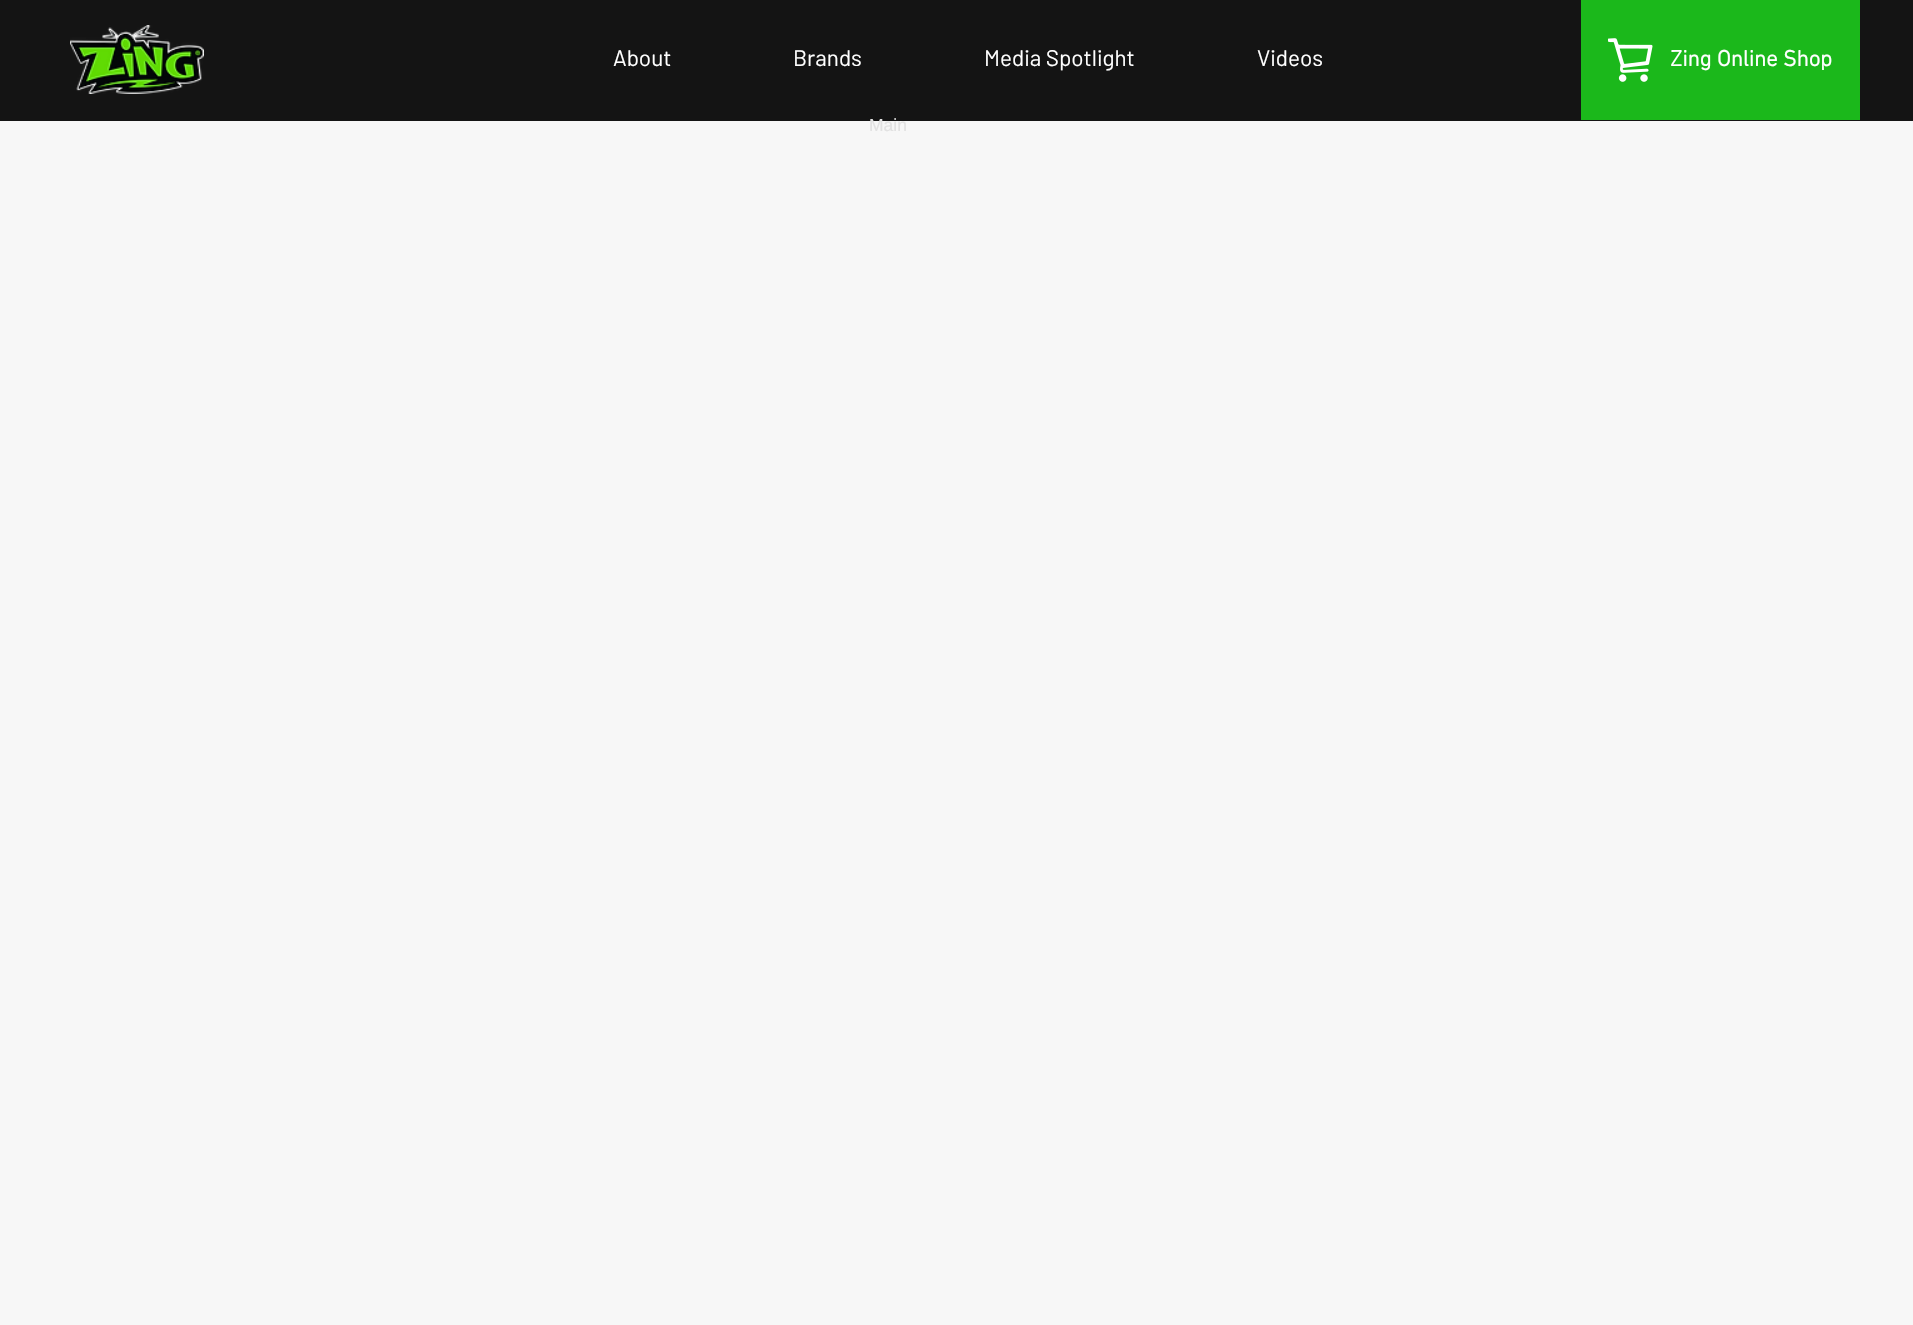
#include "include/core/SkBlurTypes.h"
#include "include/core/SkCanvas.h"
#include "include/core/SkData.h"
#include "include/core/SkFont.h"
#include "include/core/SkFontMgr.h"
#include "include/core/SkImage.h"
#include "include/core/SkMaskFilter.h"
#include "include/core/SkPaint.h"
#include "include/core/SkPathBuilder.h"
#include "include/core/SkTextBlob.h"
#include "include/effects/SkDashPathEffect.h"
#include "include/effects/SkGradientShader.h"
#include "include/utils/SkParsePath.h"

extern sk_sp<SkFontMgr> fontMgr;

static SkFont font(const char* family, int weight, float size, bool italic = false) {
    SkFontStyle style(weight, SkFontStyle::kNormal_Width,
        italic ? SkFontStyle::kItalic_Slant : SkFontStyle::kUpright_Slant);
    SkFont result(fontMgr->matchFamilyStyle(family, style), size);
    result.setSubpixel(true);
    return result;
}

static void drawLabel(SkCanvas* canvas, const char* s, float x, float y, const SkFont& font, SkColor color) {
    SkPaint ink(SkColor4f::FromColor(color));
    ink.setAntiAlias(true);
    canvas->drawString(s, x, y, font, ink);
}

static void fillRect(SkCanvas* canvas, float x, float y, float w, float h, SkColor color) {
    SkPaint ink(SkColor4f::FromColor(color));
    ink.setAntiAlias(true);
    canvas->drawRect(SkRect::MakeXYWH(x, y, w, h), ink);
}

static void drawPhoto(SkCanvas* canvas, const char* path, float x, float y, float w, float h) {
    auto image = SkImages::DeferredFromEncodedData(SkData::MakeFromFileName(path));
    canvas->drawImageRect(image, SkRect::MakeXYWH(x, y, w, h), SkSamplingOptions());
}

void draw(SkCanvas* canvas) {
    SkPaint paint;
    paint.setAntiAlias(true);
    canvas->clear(0xFFF7F7F7);
    fillRect(canvas, 0, 0, 1913, 121, 0xFF141414);
    drawPhoto(canvas, "assets/img1.png", 70, 25, 134, 69);
    SkFont font1 = font("Barlow", 400, 22.5f);
    drawLabel(canvas, "About", 613, 66, font1, 0xFFFFFFFF);
    drawLabel(canvas, "Brands", 793, 66, font1, 0xFFFFFFFF);
    drawLabel(canvas, "Media Spotlight", 984, 66, font1, 0xFFFFFFFF);
    drawLabel(canvas, "Videos", 1257, 66, font1, 0xFFFFFFFF);
    fillRect(canvas, 1581, 0, 279, 120, 0xFF1BB81B);
    drawPhoto(canvas, "assets/img2.png", 1608, 38, 45, 44);
    SkFont font2 = font("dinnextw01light", 700, 22.5f);
    drawLabel(canvas, "Zing Online Shop", 1670, 66, font2, 0xFFFFFFFF);
    SkFont font3 = font("Liberation Sans", 400, 17.5f);
    drawLabel(canvas, "Main", 869, 131, font3, 0xFFE2E2E2);
}
